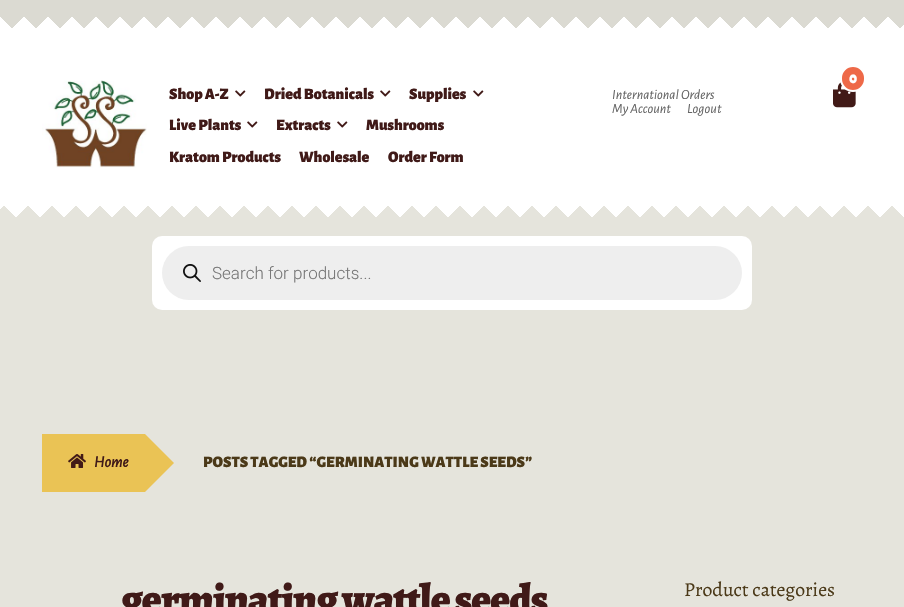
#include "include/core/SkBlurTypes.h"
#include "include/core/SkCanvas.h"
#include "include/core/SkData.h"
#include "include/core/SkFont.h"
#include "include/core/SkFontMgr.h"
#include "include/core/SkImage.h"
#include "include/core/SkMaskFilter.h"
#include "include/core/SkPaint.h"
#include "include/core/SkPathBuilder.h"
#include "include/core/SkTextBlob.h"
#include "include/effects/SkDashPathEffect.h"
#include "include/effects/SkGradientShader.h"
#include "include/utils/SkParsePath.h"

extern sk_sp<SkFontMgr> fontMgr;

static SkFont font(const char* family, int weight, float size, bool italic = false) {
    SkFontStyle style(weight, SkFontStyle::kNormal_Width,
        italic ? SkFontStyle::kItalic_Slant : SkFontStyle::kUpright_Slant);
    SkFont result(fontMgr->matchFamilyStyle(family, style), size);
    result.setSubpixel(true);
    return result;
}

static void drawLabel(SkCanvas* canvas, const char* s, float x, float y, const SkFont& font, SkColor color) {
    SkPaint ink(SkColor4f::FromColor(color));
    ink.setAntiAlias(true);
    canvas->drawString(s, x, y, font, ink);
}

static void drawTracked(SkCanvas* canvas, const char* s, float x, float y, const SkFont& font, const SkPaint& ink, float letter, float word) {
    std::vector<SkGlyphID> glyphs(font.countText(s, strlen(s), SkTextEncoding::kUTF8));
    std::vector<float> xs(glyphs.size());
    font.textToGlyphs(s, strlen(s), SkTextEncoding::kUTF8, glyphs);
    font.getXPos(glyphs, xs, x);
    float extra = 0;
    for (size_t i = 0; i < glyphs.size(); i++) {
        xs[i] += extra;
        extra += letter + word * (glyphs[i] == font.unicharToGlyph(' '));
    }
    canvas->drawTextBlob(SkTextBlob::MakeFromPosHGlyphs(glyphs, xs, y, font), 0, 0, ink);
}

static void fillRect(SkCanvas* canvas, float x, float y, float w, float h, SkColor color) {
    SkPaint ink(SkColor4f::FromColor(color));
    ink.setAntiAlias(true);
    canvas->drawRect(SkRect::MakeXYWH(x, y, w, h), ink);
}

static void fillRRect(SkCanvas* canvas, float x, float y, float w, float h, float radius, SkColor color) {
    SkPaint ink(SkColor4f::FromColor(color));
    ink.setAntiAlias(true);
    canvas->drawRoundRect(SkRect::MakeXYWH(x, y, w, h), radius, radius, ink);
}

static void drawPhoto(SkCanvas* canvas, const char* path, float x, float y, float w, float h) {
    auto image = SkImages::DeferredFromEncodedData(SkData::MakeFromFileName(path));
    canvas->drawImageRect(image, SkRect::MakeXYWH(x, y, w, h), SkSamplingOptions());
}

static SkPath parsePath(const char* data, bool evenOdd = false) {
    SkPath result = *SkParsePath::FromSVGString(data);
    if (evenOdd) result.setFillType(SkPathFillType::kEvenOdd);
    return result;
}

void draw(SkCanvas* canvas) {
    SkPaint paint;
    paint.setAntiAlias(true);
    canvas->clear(0xFFE5E4DC);
    fillRect(canvas, 0, 32, 904, 170, 0xFFFFFFFF);
    fillRect(canvas, 0, 0, 904, 28, 0xFFDBDAD2);
    drawPhoto(canvas, "assets/img1.png", 0, 17, 900, 15);
    drawPhoto(canvas, "assets/img2.png", 12, 17, 892, 15);
    drawPhoto(canvas, "assets/img3.png", 833, 82, 23, 26);
    paint.setColor(0xFFEE6948);
    canvas->drawRoundRect(SkRect::MakeXYWH(841, 66, 24, 25), 12, 12, paint);
    paint.setStroke(true);
    paint.setStrokeWidth(2);
    paint.setColor(0xFFFFFFFF);
    canvas->drawRoundRect(SkRect::MakeXYWH(841, 66, 24, 25), 12, 12, paint);
    SkFont font1 = font("Alegreya Sans", 900, 16);
    drawLabel(canvas, "0", 849, 83, font1, 0xFFFFFFFF);
    drawPhoto(canvas, "assets/img4.png", 42, 80, 105, 88);
    drawLabel(canvas, "Shop A-Z", 169, 99, font1, 0xFF401A18);
    drawPhoto(canvas, "assets/img5.png", 235, 90, 11, 7);
    drawLabel(canvas, "Dried Botanicals", 264, 99, font1, 0xFF401A18);
    drawPhoto(canvas, "assets/img5.png", 380, 90, 11, 7);
    drawLabel(canvas, "Supplies", 409, 99, font1, 0xFF401A18);
    drawPhoto(canvas, "assets/img5.png", 473, 90, 11, 7);
    drawLabel(canvas, "Live Plants", 169, 130, font1, 0xFF401A18);
    drawPhoto(canvas, "assets/img5.png", 247, 121, 11, 7);
    drawLabel(canvas, "Extracts", 276, 130, font1, 0xFF401A18);
    drawPhoto(canvas, "assets/img5.png", 337, 121, 11, 7);
    drawLabel(canvas, "Mushrooms", 366, 130, font1, 0xFF401A18);
    drawLabel(canvas, "Kratom Products", 169, 162, font1, 0xFF401A18);
    drawLabel(canvas, "Wholesale", 299, 162, font1, 0xFF401A18);
    drawLabel(canvas, "Order Form", 388, 162, font1, 0xFF401A18);
    SkFont font2 = font("Alegreya Sans", 400, 14, true);
    drawLabel(canvas, "International Orders", 612, 99, font2, 0xFF666666);
    drawLabel(canvas, "My Account", 612, 113, font2, 0xFF666666);
    drawLabel(canvas, "Logout", 687, 113, font2, 0xFF666666);
    drawPhoto(canvas, "assets/img6.png", 4, 202, 900, 15);
    drawPhoto(canvas, "assets/img7.png", 0, 202, 892, 15);
    fillRRect(canvas, 152, 236, 600, 74, 10, 0xFFFFFFFF);
    fillRRect(canvas, 162, 246, 580, 54, 27, 0xFFEEEEEE);
    drawPhoto(canvas, "assets/img8.png", 183, 264, 18, 18);
    SkFont font3 = font("Roboto", 300, 17);
    drawLabel(canvas, "Search for products...", 212, 279, font3, 0xFF777777);
    fillRect(canvas, 42, 434, 100, 58, 0xFFEAC355);
    drawPhoto(canvas, "assets/img9.png", 68, 454, 18, 14);
    SkFont font4 = font("Alegreya Sans", 700, 16, true);
    drawLabel(canvas, "Home", 94, 467, font4, 0xFF401A18);
    canvas->save();
    canvas->clipRect(SkRect::MakeXYWH(42, 434, 820, 58));
    paint.setStroke(false);
    paint.setColor(0xFFEAC355);
    canvas->drawPath(parsePath("M142 495V431L174 463Z"), paint);
    canvas->restore();
    drawLabel(canvas, "POSTS TAGGED “GERMINATING WATTLE SEEDS”", 203, 467, font1, 0xFF4B3918);
    SkFont font5 = font("Alegreya", 900, 41.9f);
    paint.setColor(0xFF401A18);
    drawTracked(canvas, "germinating wattle seeds", 121, 613, font5, paint, -1, 0);
    SkFont font6 = font("Alegreya", 400, 19.75f);
    drawLabel(canvas, "Product categories", 684, 596, font6, 0xFF4B3918);
}
